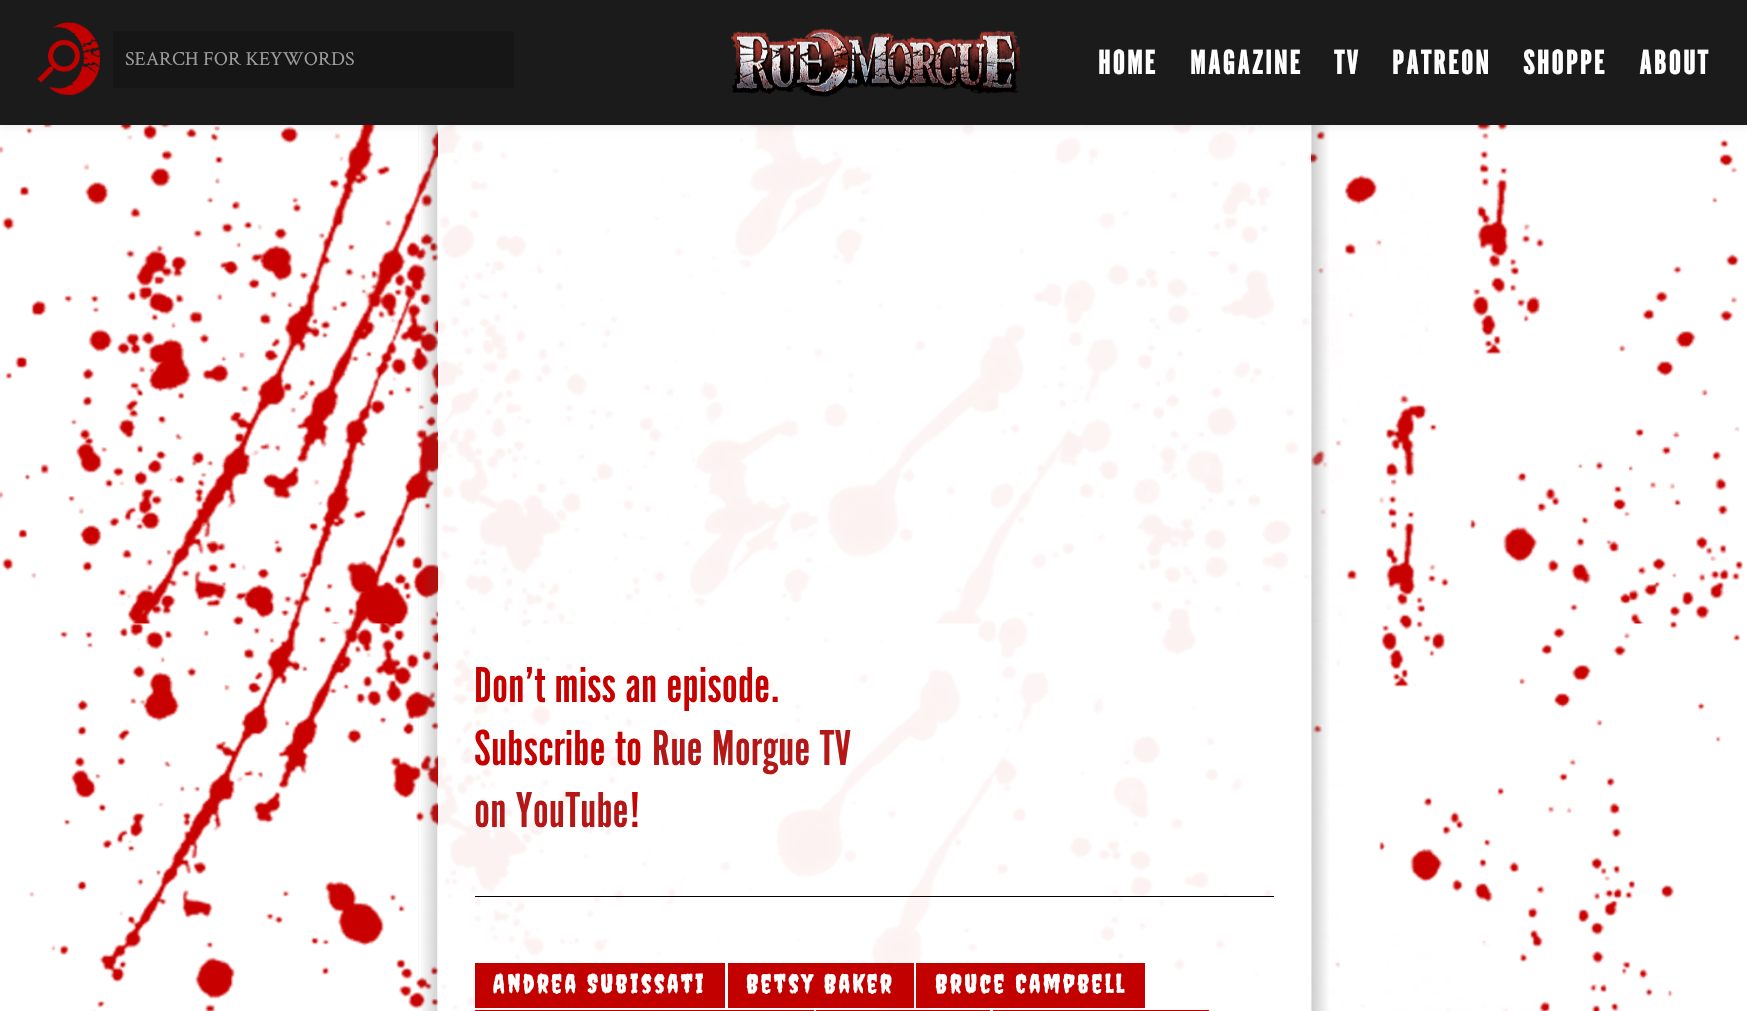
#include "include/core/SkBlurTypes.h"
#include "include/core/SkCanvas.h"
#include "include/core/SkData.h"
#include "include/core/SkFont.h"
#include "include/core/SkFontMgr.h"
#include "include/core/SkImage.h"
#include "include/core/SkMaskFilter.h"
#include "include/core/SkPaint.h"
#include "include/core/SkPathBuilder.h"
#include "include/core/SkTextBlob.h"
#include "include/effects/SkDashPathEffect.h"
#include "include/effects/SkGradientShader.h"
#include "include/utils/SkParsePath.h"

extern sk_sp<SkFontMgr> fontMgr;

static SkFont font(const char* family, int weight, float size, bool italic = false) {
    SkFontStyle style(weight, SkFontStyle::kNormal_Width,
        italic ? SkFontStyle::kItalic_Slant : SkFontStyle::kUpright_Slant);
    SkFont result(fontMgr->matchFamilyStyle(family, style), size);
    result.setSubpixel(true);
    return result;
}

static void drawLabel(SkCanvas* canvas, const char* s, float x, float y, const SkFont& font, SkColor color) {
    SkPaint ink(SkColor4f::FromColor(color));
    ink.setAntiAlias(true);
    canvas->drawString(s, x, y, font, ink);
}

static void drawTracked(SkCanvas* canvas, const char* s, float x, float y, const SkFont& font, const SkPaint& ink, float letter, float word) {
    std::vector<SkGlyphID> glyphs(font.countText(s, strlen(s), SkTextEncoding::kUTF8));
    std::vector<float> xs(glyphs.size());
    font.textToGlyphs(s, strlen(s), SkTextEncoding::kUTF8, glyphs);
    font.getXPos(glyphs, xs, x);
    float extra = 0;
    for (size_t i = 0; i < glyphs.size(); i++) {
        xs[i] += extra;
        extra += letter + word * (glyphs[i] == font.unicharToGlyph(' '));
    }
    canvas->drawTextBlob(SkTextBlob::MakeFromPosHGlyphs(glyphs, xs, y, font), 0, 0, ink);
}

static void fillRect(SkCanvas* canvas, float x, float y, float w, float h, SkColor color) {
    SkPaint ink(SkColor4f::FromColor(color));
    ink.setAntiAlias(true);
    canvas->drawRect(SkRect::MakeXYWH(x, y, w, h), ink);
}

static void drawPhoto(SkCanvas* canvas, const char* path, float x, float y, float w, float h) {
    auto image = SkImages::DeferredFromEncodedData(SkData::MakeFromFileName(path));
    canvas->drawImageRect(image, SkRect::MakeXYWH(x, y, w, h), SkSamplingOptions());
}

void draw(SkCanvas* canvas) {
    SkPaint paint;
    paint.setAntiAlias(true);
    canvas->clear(0xFFFFFFFF);
    drawPhoto(canvas, "assets/img3.png", 0, 251, 1741, 760);
    drawPhoto(canvas, "assets/img4.png", 0, 125, 1743, 499);
    fillRect(canvas, 438, 624, 873, 272, 0xF2FFFFFF);
    drawPhoto(canvas, "assets/img6.png", 418, 623, 911, 273);
    fillRect(canvas, 438, 125, 873, 499, 0xF2FFFFFF);
    drawPhoto(canvas, "assets/img5.png", 418, 125, 911, 499);
    paint.setColor(0x1A000000);
    paint.setMaskFilter(SkMaskFilter::MakeBlur(kNormal_SkBlurStyle, 4.5f));
    canvas->drawRect(SkRect::MakeXYWH(0, 0, 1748, 125), paint);
    paint.setMaskFilter(nullptr);
    fillRect(canvas, 0, 0, 1747, 125, 0xFF1B1B1B);
    drawPhoto(canvas, "assets/img1.png", 731, 28, 290, 69);
    drawPhoto(canvas, "assets/img2.png", 37, 22, 63, 73);
    fillRect(canvas, 113, 31, 401, 57, 0xFF161616);
    SkFont font1 = font("Crimson Text", 400, 20);
    drawLabel(canvas, "SEARCH FOR KEYWORDS", 125, 65, font1, 0xFF9B9999);
    SkFont font2 = font("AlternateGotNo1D", 700, 35);
    paint.setColor(0xFFFFFFFF);
    drawTracked(canvas, "HOME", 1098, 74, font2, paint, 2.5f, 0);
    drawTracked(canvas, "MAGAZINE", 1190, 74, font2, paint, 2.5f, 0);
    drawTracked(canvas, "TV", 1334, 74, font2, paint, 2.5f, 0);
    drawTracked(canvas, "PATREON", 1392, 74, font2, paint, 2.5f, 0);
    drawTracked(canvas, "SHOPPE", 1523, 74, font2, paint, 2.5f, 0);
    drawTracked(canvas, "ABOUT", 1639, 74, font2, paint, 2.5f, 0);
    SkFont font3 = font("AlternateGotNo1D", 400, 52.5f);
    drawLabel(canvas, "Don’t miss an episode.", 474, 702, font3, 0xFFC70000);
    drawLabel(canvas, "Subscribe to", 474, 765, font3, 0xFFC70000);
    drawLabel(canvas, "Rue Morgue TV", 652, 765, font3, 0xFFB51717);
    drawLabel(canvas, "on YouTube", 474, 827, font3, 0xFFB51717);
    drawLabel(canvas, "!", 629, 827, font3, 0xFFC70000);
    fillRect(canvas, 438, 896, 869, 115, 0xF2FFFFFF);
    drawPhoto(canvas, "assets/img7.png", 418, 896, 911, 115);
    fillRect(canvas, 475, 896, 799, 1, 0xFF000000);
    fillRect(canvas, 475, 963, 250, 45, 0xFFC20000);
    SkFont font4 = font("Creepster", 400, 26.25f);
    drawTracked(canvas, "Andrea Subissati", 493, 993, font4, paint, 2.5f, 0);
    fillRect(canvas, 728, 963, 186, 45, 0xFFC20000);
    drawTracked(canvas, "Betsy Baker", 746, 993, font4, paint, 2.5f, 0);
    fillRect(canvas, 916, 963, 229, 45, 0xFFC20000);
    drawTracked(canvas, "Bruce Campbell", 935, 993, font4, paint, 2.5f, 0);
    fillRect(canvas, 475, 1010, 339, 1, 0xFFC20000);
    fillRect(canvas, 816, 1010, 174, 1, 0xFFC20000);
    fillRect(canvas, 993, 1010, 216, 1, 0xFFC20000);
}
